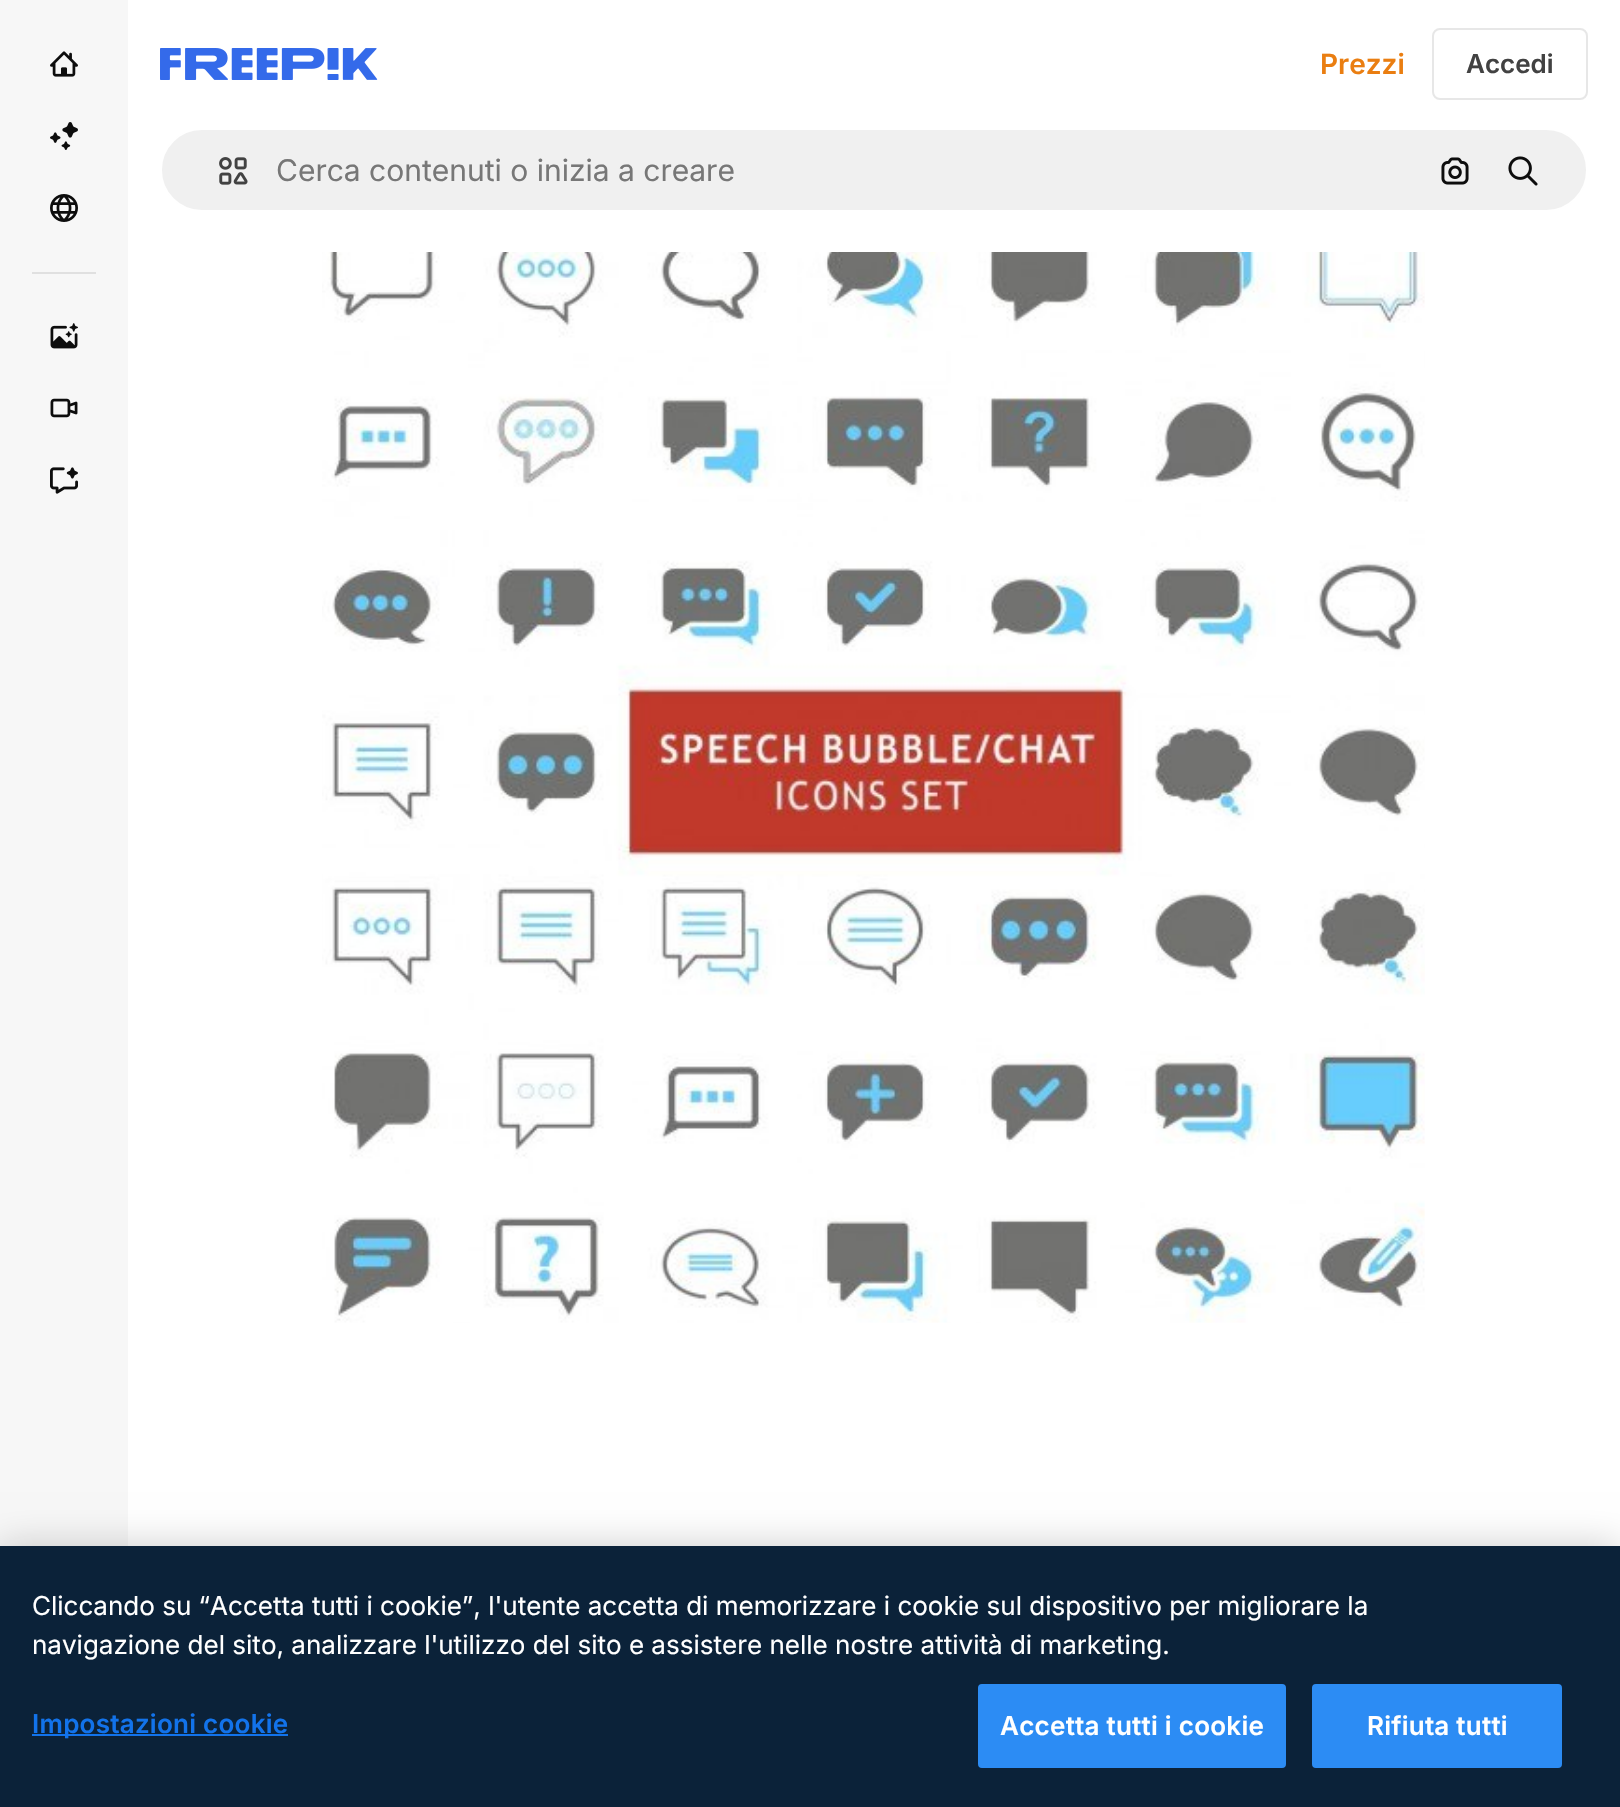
#include "include/core/SkBlurTypes.h"
#include "include/core/SkCanvas.h"
#include "include/core/SkData.h"
#include "include/core/SkFont.h"
#include "include/core/SkFontMgr.h"
#include "include/core/SkImage.h"
#include "include/core/SkMaskFilter.h"
#include "include/core/SkPaint.h"
#include "include/core/SkPathBuilder.h"
#include "include/core/SkTextBlob.h"
#include "include/effects/SkDashPathEffect.h"
#include "include/effects/SkGradientShader.h"
#include "include/utils/SkParsePath.h"

extern sk_sp<SkFontMgr> fontMgr;

static SkFont font(const char* family, int weight, float size, bool italic = false) {
    SkFontStyle style(weight, SkFontStyle::kNormal_Width,
        italic ? SkFontStyle::kItalic_Slant : SkFontStyle::kUpright_Slant);
    SkFont result(fontMgr->matchFamilyStyle(family, style), size);
    result.setSubpixel(true);
    return result;
}

static void drawLabel(SkCanvas* canvas, const char* s, float x, float y, const SkFont& font, SkColor color) {
    SkPaint ink(SkColor4f::FromColor(color));
    ink.setAntiAlias(true);
    canvas->drawString(s, x, y, font, ink);
}

static void drawTracked(SkCanvas* canvas, const char* s, float x, float y, const SkFont& font, const SkPaint& ink, float letter, float word) {
    std::vector<SkGlyphID> glyphs(font.countText(s, strlen(s), SkTextEncoding::kUTF8));
    std::vector<float> xs(glyphs.size());
    font.textToGlyphs(s, strlen(s), SkTextEncoding::kUTF8, glyphs);
    font.getXPos(glyphs, xs, x);
    float extra = 0;
    for (size_t i = 0; i < glyphs.size(); i++) {
        xs[i] += extra;
        extra += letter + word * (glyphs[i] == font.unicharToGlyph(' '));
    }
    canvas->drawTextBlob(SkTextBlob::MakeFromPosHGlyphs(glyphs, xs, y, font), 0, 0, ink);
}

static void fillRect(SkCanvas* canvas, float x, float y, float w, float h, SkColor color) {
    SkPaint ink(SkColor4f::FromColor(color));
    ink.setAntiAlias(true);
    canvas->drawRect(SkRect::MakeXYWH(x, y, w, h), ink);
}

static void drawPhoto(SkCanvas* canvas, const char* path, float x, float y, float w, float h) {
    auto image = SkImages::DeferredFromEncodedData(SkData::MakeFromFileName(path));
    canvas->drawImageRect(image, SkRect::MakeXYWH(x, y, w, h), SkSamplingOptions());
}

void draw(SkCanvas* canvas) {
    SkPaint paint;
    paint.setAntiAlias(true);
    canvas->clear(0xFFFFFFFF);
    fillRect(canvas, 0, 0, 128, 1546, 0xFFF7F7F7);
    drawPhoto(canvas, "assets/img1.png", 50, 51, 28, 26);
    drawPhoto(canvas, "assets/img2.png", 50, 122, 28, 28);
    drawPhoto(canvas, "assets/img3.png", 50, 194, 28, 28);
    fillRect(canvas, 32, 272, 64, 2, 0xFFE0E0E0);
    drawPhoto(canvas, "assets/img4.png", 50, 323, 28, 26);
    drawPhoto(canvas, "assets/img5.png", 50, 398, 28, 20);
    drawPhoto(canvas, "assets/img6.png", 50, 467, 28, 27);
    drawPhoto(canvas, "assets/img7.png", 160, 48, 218, 32);
    SkFont font1 = font("Inter", 600, 28);
    drawLabel(canvas, "Prezzi", 1320, 74, font1, 0xFFEA7E11);
    paint.setStroke(true);
    paint.setStrokeWidth(2);
    paint.setColor(0xFFE7E7E7);
    canvas->drawRoundRect(SkRect::MakeXYWH(1433, 29, 154, 70), 7, 7, paint);
    SkFont font2 = font("Inter", 600, 26);
    drawLabel(canvas, "Accedi", 1466, 73, font2, 0xFF424242);
    paint.setStroke(false);
    paint.setColor(0xFFF0F0F0);
    canvas->drawRoundRect(SkRect::MakeXYWH(161, 129, 1426, 82), 41, 41, paint);
    paint.setStroke(true);
    paint.setColor(0xFFFFFFFF);
    canvas->drawRoundRect(SkRect::MakeXYWH(161, 129, 1426, 82), 41, 41, paint);
    drawPhoto(canvas, "assets/img8.png", 219, 157, 29, 28);
    SkFont font3 = font("Inter", 400, 30);
    drawLabel(canvas, "Cerca contenuti o inizia a creare", 276, 181, font3, 0xFF777777);
    drawPhoto(canvas, "assets/img9.png", 1441, 157, 28, 28);
    drawPhoto(canvas, "assets/img10.png", 1508, 156, 30, 30);
    drawPhoto(canvas, "assets/img11.png", 322, 252, 1103, 1071);
    paint.setStroke(false);
    paint.setColor(0x33000000);
    paint.setMaskFilter(SkMaskFilter::MakeBlur(kNormal_SkBlurStyle, 18));
    canvas->drawRect(SkRect::MakeXYWH(0, 1546, 1620, 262), paint);
    paint.setMaskFilter(nullptr);
    fillRect(canvas, 0, 1546, 1620, 261, 0xFF0B2239);
    SkFont font4 = font("Inter", 400, 26.02f);
    drawLabel(canvas, "Cliccando su “Accetta tutti i cookie”, l'utente accetta di memorizzare i cookie sul dispositivo per migliorare la", 32, 1615, font4, 0xFFFFFFFF);
    drawLabel(canvas, "navigazione del sito, analizzare l'utilizzo del sito e assistere nelle nostre attività di marketing.", 32, 1654, font4, 0xFFFFFFFF);
    fillRect(canvas, 32, 1734, 256, 2, 0xFF1273EB);
    SkFont font5 = font("Inter", 600, 26.02f);
    paint.setColor(0xFF1273EB);
    drawTracked(canvas, "Impostazioni cookie", 32, 1733, font5, paint, 0.25f, 0);
    paint.setColor(0xFF2C8CF4);
    canvas->drawRoundRect(SkRect::MakeXYWH(979, 1685, 306, 82), 3, 3, paint);
    paint.setStroke(true);
    canvas->drawRoundRect(SkRect::MakeXYWH(979, 1685, 306, 82), 3, 3, paint);
    paint.setStroke(false);
    paint.setColor(0xFFFFFFFF);
    drawTracked(canvas, "Accetta tutti i cookie", 1000, 1735, font5, paint, 0.25f, 0);
    paint.setColor(0xFF2C8CF4);
    canvas->drawRoundRect(SkRect::MakeXYWH(1313, 1685, 248, 82), 3, 3, paint);
    paint.setStroke(true);
    canvas->drawRoundRect(SkRect::MakeXYWH(1313, 1685, 248, 82), 3, 3, paint);
    paint.setStroke(false);
    paint.setColor(0xFFFFFFFF);
    drawTracked(canvas, "Rifiuta tutti", 1367, 1735, font5, paint, 0.25f, 0);
}
